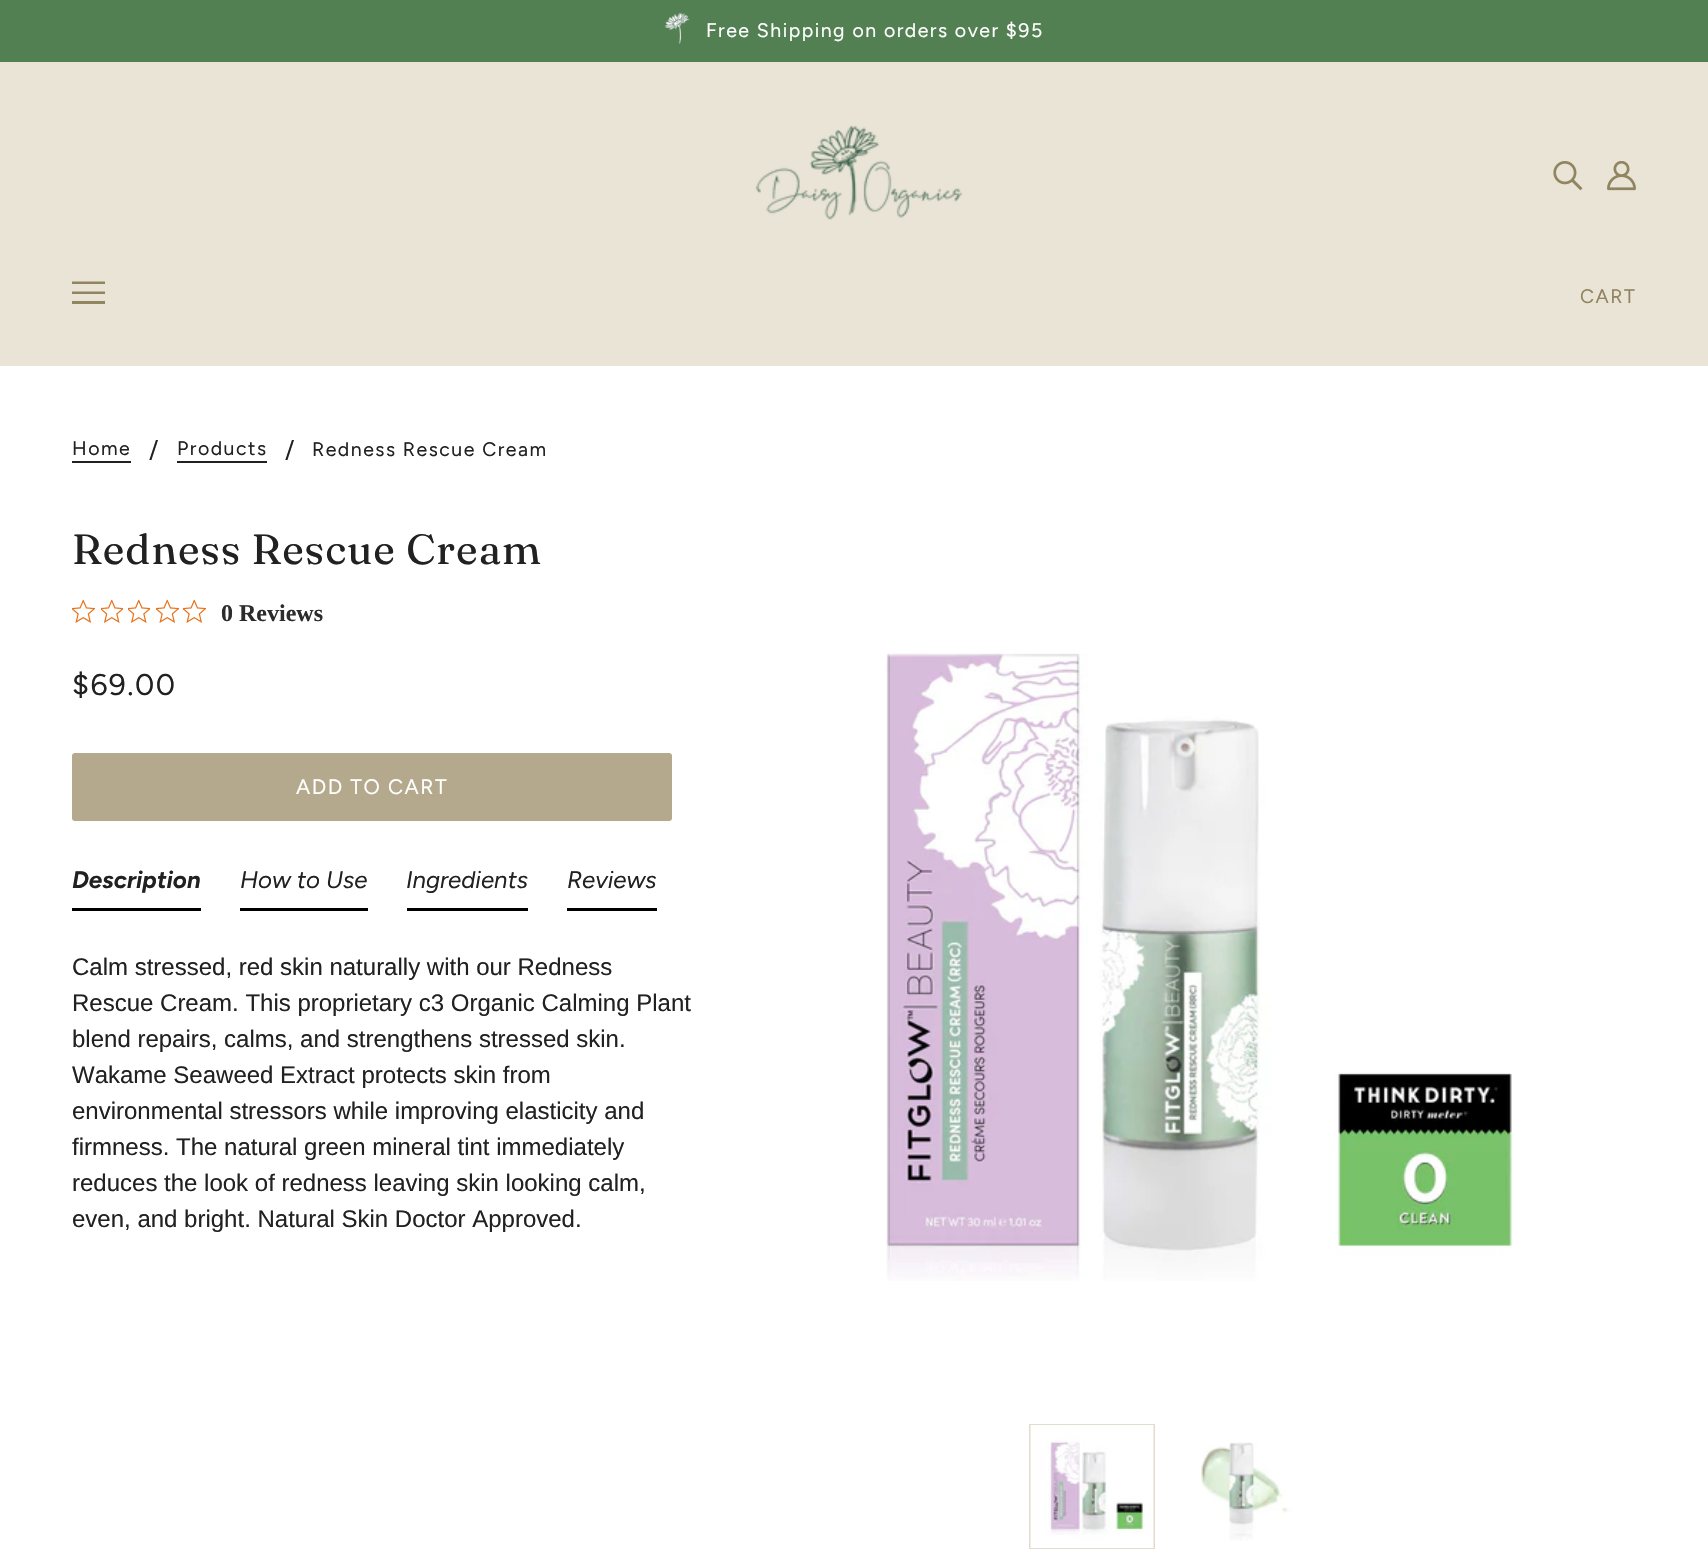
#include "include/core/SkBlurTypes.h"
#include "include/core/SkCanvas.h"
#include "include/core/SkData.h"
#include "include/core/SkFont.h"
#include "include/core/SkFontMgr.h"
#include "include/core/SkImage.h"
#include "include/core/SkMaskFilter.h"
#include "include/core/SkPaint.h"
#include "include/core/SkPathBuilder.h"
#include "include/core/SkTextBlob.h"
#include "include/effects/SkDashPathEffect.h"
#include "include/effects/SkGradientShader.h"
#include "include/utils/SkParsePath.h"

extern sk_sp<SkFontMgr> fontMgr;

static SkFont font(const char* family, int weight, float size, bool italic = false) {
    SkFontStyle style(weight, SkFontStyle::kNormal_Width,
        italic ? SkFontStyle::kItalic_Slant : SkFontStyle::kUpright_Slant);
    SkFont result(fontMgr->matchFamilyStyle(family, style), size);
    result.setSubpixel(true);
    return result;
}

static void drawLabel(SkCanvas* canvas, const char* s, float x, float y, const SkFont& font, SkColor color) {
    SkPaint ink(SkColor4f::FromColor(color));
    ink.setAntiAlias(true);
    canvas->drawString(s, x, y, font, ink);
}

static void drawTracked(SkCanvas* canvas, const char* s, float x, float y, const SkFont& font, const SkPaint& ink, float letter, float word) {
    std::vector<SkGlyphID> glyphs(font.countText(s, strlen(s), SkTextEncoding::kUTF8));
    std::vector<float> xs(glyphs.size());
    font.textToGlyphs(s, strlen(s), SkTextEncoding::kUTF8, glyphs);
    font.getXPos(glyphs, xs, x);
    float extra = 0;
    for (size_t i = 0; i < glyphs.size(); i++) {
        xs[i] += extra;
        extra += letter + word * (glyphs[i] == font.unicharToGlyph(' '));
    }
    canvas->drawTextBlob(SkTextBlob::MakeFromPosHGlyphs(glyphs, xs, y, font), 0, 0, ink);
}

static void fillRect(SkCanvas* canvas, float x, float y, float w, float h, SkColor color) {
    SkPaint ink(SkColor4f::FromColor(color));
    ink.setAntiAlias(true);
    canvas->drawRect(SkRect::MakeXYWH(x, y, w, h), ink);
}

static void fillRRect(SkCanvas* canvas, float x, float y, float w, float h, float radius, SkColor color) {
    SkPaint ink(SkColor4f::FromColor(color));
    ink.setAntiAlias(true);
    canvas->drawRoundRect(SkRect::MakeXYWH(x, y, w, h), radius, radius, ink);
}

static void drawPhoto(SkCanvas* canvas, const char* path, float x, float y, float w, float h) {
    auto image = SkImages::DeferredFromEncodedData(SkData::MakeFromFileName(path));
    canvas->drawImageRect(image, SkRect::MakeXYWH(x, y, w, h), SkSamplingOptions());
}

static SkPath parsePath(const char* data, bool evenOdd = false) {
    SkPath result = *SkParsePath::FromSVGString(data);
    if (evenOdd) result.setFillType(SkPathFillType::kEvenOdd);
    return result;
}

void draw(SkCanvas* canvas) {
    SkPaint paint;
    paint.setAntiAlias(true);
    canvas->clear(0xFFFFFFFF);
    fillRect(canvas, 0, 0, 1708, 62, 0xFF538053);
    drawPhoto(canvas, "assets/img1.png", 665, 12, 25, 32);
    SkFont font1 = font("Figtree", 400, 19.5f);
    paint.setColor(0xFFFFFFFF);
    drawTracked(canvas, "Free Shipping on orders over $95", 706, 37, font1, paint, 1.5f, 0);
    fillRect(canvas, 0, 62, 1708, 304, 0xFFE9E4D6);
    drawPhoto(canvas, "assets/img2.png", 755, 125, 208, 95);
    drawPhoto(canvas, "assets/img3.png", 1553, 161, 30, 30);
    drawPhoto(canvas, "assets/img4.png", 1607, 161, 29, 30);
    paint.setColor(0xFF918460);
    canvas->drawPath(parsePath("M72 284V281.5H105V284ZM72 294V291.5H105V294ZM72 304V301H105V304Z"), paint);
    drawTracked(canvas, "CART", 1580, 303, font1, paint, 1.5f, 0);
    paint.setColor(0xFF212121);
    drawTracked(canvas, "Home", 72, 455, font1, paint, 1.5f, 0);
    fillRect(canvas, 72, 461, 59, 2, 0xFF212121);
    SkFont font2 = font("Figtree", 400, 24);
    drawLabel(canvas, "/", 149, 458, font2, 0xFF212121);
    drawTracked(canvas, "Products", 177, 455, font1, paint, 1.5f, 0);
    fillRect(canvas, 177, 461, 90, 2, 0xFF212121);
    drawLabel(canvas, "/", 285, 458, font2, 0xFF212121);
    drawTracked(canvas, "Redness Rescue Cream", 312, 456, font1, paint, 1.5f, 0);
    SkFont font3 = font("Fraunces", 400, 42);
    drawTracked(canvas, "Redness Rescue Cream", 72, 564, font3, paint, 1.05f, 0);
    drawPhoto(canvas, "assets/img5.png", 72, 600, 23, 23);
    drawPhoto(canvas, "assets/img6.png", 101, 600, 22, 23);
    drawPhoto(canvas, "assets/img6.png", 128, 600, 22, 23);
    drawPhoto(canvas, "assets/img5.png", 156, 600, 23, 23);
    drawPhoto(canvas, "assets/img5.png", 183, 600, 23, 23);
    SkFont font4 = font("Liberation Serif", 700, 24);
    drawLabel(canvas, "0 Reviews", 221, 621, font4, 0xFF2C2C2C);
    SkFont font5 = font("Figtree", 400, 30);
    drawTracked(canvas, "$69.00", 72, 695, font5, paint, 1.5f, 0);
    fillRRect(canvas, 72, 753, 600, 68, 3, 0xFFB4A98C);
    SkFont font6 = font("Figtree", 400, 21);
    paint.setColor(0xFFFFFFFF);
    drawTracked(canvas, "ADD TO CART", 296, 794, font6, paint, 1.5f, 0);
    drawPhoto(canvas, "assets/img7.png", 886, 653, 627, 628);
    paint.setStroke(true);
    paint.setStrokeWidth(2);
    paint.setColor(0xFFE1DCCE);
    canvas->drawRect(SkRect::MakeXYWH(1030, 1425, 124, 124), paint);
    drawPhoto(canvas, "assets/img8.png", 1030, 1425, 124, 123);
    drawPhoto(canvas, "assets/img9.png", 1201, 1442, 90, 99);
    fillRect(canvas, 72, 908, 129, 3, 0xFF000000);
    SkFont font7 = font("Figtree", 700, 24, true);
    drawLabel(canvas, "Description", 72, 888, font7, 0xFF212121);
    fillRect(canvas, 240, 908, 128, 3, 0xFF000000);
    SkFont font8 = font("Figtree", 400, 24, true);
    drawLabel(canvas, "How to Use", 240, 888, font8, 0xFF212121);
    fillRect(canvas, 407, 908, 121, 3, 0xFF000000);
    drawLabel(canvas, "Ingredients", 406, 888, font8, 0xFF212121);
    fillRect(canvas, 567, 908, 90, 3, 0xFF000000);
    drawLabel(canvas, "Reviews", 567, 888, font8, 0xFF212121);
    SkFont font9 = font("Liberation Sans", 400, 24);
    drawLabel(canvas, "Calm stressed, red skin naturally with our Redness", 72, 975, font9, 0xFF212121);
    drawLabel(canvas, "Rescue Cream. This proprietary c3 Organic Calming Plant", 72, 1011, font9, 0xFF212121);
    drawLabel(canvas, "blend repairs, calms, and strengthens stressed skin.", 72, 1047, font9, 0xFF212121);
    drawLabel(canvas, "Wakame Seaweed Extract protects skin from", 72, 1083, font9, 0xFF212121);
    drawLabel(canvas, "environmental stressors while improving elasticity and", 72, 1119, font9, 0xFF212121);
    drawLabel(canvas, "firmness. The natural green mineral tint immediately", 72, 1155, font9, 0xFF212121);
    drawLabel(canvas, "reduces the look of redness leaving skin looking calm,", 72, 1191, font9, 0xFF212121);
    drawLabel(canvas, "even, and bright. Natural Skin Doctor Approved.", 72, 1227, font9, 0xFF212121);
}
